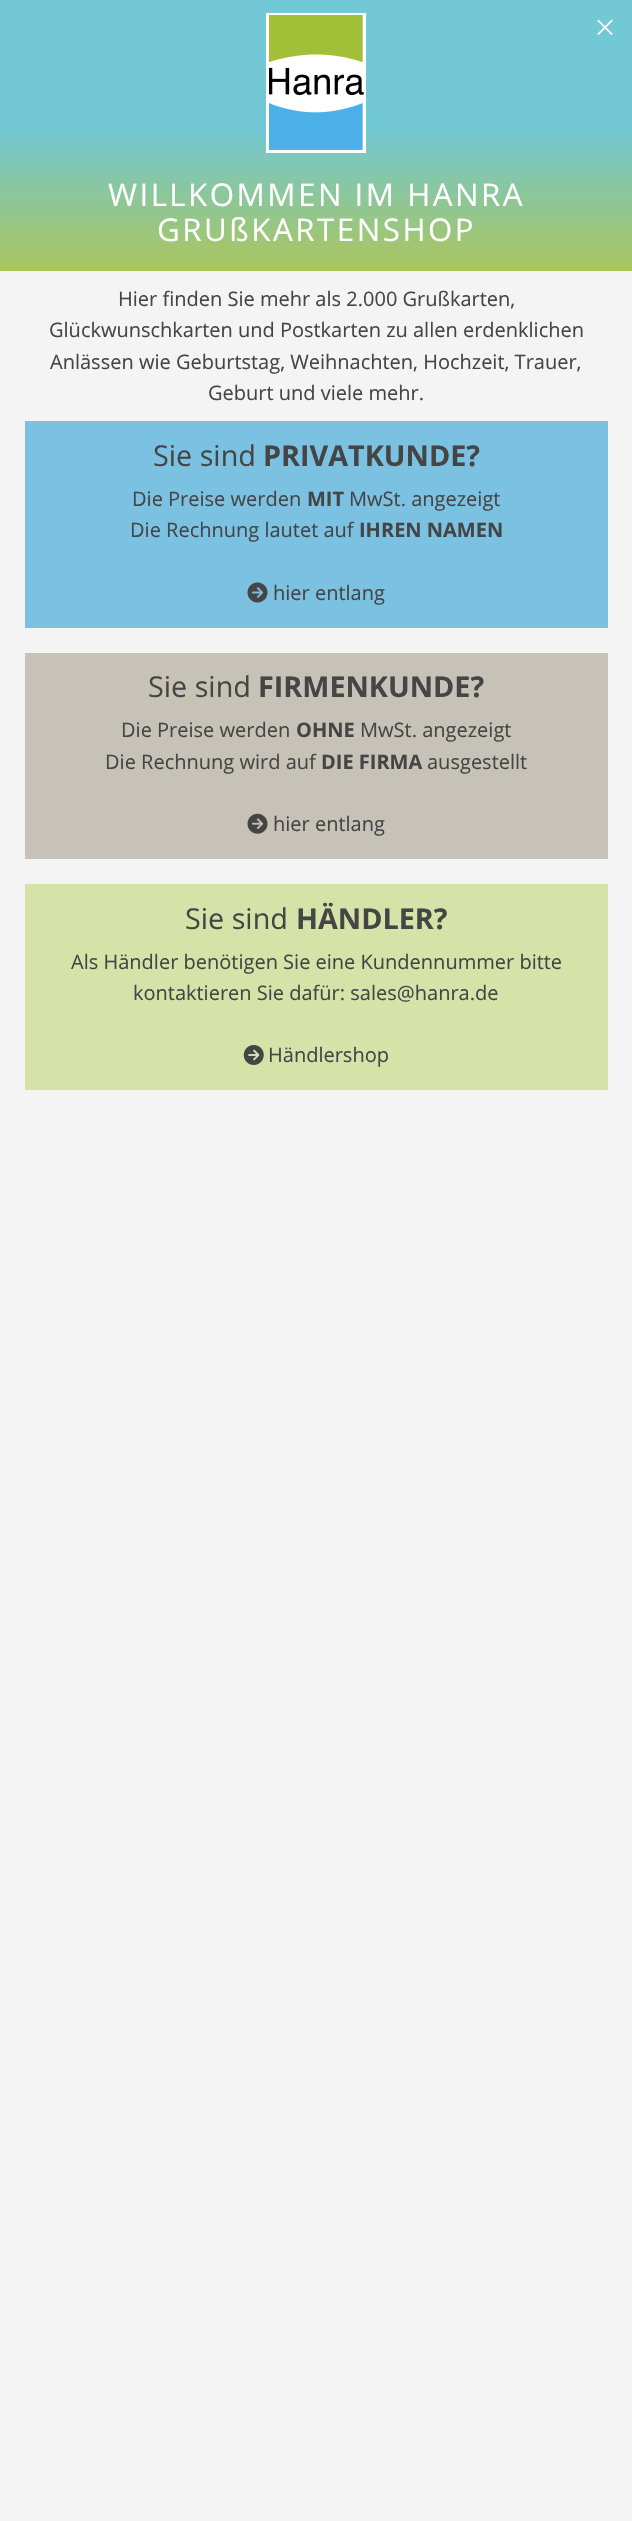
#include "include/core/SkBlurTypes.h"
#include "include/core/SkCanvas.h"
#include "include/core/SkData.h"
#include "include/core/SkFont.h"
#include "include/core/SkFontMgr.h"
#include "include/core/SkImage.h"
#include "include/core/SkMaskFilter.h"
#include "include/core/SkPaint.h"
#include "include/core/SkPathBuilder.h"
#include "include/core/SkTextBlob.h"
#include "include/effects/SkDashPathEffect.h"
#include "include/effects/SkGradientShader.h"
#include "include/utils/SkParsePath.h"

extern sk_sp<SkFontMgr> fontMgr;

static SkFont font(const char* family, int weight, float size, bool italic = false) {
    SkFontStyle style(weight, SkFontStyle::kNormal_Width,
        italic ? SkFontStyle::kItalic_Slant : SkFontStyle::kUpright_Slant);
    SkFont result(fontMgr->matchFamilyStyle(family, style), size);
    result.setSubpixel(true);
    return result;
}

static void drawLabel(SkCanvas* canvas, const char* s, float x, float y, const SkFont& font, SkColor color) {
    SkPaint ink(SkColor4f::FromColor(color));
    ink.setAntiAlias(true);
    canvas->drawString(s, x, y, font, ink);
}

static void drawTracked(SkCanvas* canvas, const char* s, float x, float y, const SkFont& font, const SkPaint& ink, float letter, float word) {
    std::vector<SkGlyphID> glyphs(font.countText(s, strlen(s), SkTextEncoding::kUTF8));
    std::vector<float> xs(glyphs.size());
    font.textToGlyphs(s, strlen(s), SkTextEncoding::kUTF8, glyphs);
    font.getXPos(glyphs, xs, x);
    float extra = 0;
    for (size_t i = 0; i < glyphs.size(); i++) {
        xs[i] += extra;
        extra += letter + word * (glyphs[i] == font.unicharToGlyph(' '));
    }
    canvas->drawTextBlob(SkTextBlob::MakeFromPosHGlyphs(glyphs, xs, y, font), 0, 0, ink);
}

static void fillRect(SkCanvas* canvas, float x, float y, float w, float h, SkColor color) {
    SkPaint ink(SkColor4f::FromColor(color));
    ink.setAntiAlias(true);
    canvas->drawRect(SkRect::MakeXYWH(x, y, w, h), ink);
}

static void drawPhoto(SkCanvas* canvas, const char* path, float x, float y, float w, float h) {
    auto image = SkImages::DeferredFromEncodedData(SkData::MakeFromFileName(path));
    canvas->drawImageRect(image, SkRect::MakeXYWH(x, y, w, h), SkSamplingOptions());
}

void draw(SkCanvas* canvas) {
    SkPaint paint;
    paint.setAntiAlias(true);
    canvas->clear(0xFFF4F4F4);
    {
        const SkColor colors[] = {0xFF72C8D4, 0xFFAAC55C};
        const float stops[] = {0.47f, 1};
        const SkPoint ends[] = {{316, 0}, {316, 271}};
        paint.setShader(SkGradientShader::MakeLinear(ends, colors, stops, 2, SkTileMode::kClamp));
        paint.setAlpha(255);
    }
    canvas->drawRect(SkRect::MakeXYWH(0, 0, 632, 271), paint);
    drawPhoto(canvas, "assets/img1.png", 597, 19, 16, 16);
    fillRect(canvas, 266, 13, 100, 140, 0xFFFFFFFF);
    drawPhoto(canvas, "assets/img2.png", 269, 15, 95, 135);
    SkFont font1 = font("Open Sans", 400, 31.25f);
    paint.setShader(nullptr);
    paint.setColor(0xFFFFFFFF);
    drawTracked(canvas, "WILLKOMMEN IM HANRA", 108, 206, font1, paint, 2.5f, 0);
    drawTracked(canvas, "GRUßKARTENSHOP", 157, 241, font1, paint, 2.5f, 0);
    SkFont font2 = font("Open Sans", 400, 20);
    drawLabel(canvas, "Hier finden Sie mehr als 2.000 Grußkarten,", 118, 306, font2, 0xFF454545);
    drawLabel(canvas, "Glückwunschkarten und Postkarten zu allen erdenklichen", 49, 337, font2, 0xFF454545);
    drawLabel(canvas, "Anlässen wie Geburtstag, Weihnachten, Hochzeit, Trauer,", 50, 369, font2, 0xFF454545);
    drawLabel(canvas, "Geburt und viele mehr.", 208, 400, font2, 0xFF454545);
    fillRect(canvas, 25, 421, 583, 207, 0xFF7BC1E2);
    SkFont font3 = font("Open Sans", 400, 28.75f);
    drawLabel(canvas, "Sie sind", 153, 466, font3, 0xFF454545);
    SkFont font4 = font("Open Sans", 700, 28.75f);
    drawLabel(canvas, "PRIVATKUNDE?", 263, 466, font4, 0xFF454545);
    drawLabel(canvas, "Die Preise werden", 132, 506, font2, 0xFF454545);
    SkFont font5 = font("Open Sans", 700, 20);
    drawLabel(canvas, "MIT", 307, 506, font5, 0xFF454545);
    drawLabel(canvas, "MwSt. angezeigt", 349, 506, font2, 0xFF454545);
    drawLabel(canvas, "Die Rechnung lautet auf", 130, 537, font2, 0xFF454545);
    drawLabel(canvas, "IHREN NAMEN", 359, 537, font5, 0xFF454545);
    drawPhoto(canvas, "assets/img3.png", 247, 582, 21, 21);
    drawLabel(canvas, "hier entlang", 273, 600, font2, 0xFF454545);
    fillRect(canvas, 25, 653, 583, 206, 0xFFC6C2B7);
    drawLabel(canvas, "Sie sind", 148, 697, font3, 0xFF454545);
    drawLabel(canvas, "FIRMENKUNDE?", 258, 697, font4, 0xFF454545);
    drawLabel(canvas, "Die Preise werden", 121, 737, font2, 0xFF454545);
    drawLabel(canvas, "OHNE", 296, 737, font5, 0xFF454545);
    drawLabel(canvas, "MwSt. angezeigt", 360, 737, font2, 0xFF454545);
    drawLabel(canvas, "Die Rechnung wird auf", 105, 769, font2, 0xFF454545);
    drawLabel(canvas, "DIE FIRMA", 321, 769, font5, 0xFF454545);
    drawLabel(canvas, "ausgestellt", 427, 769, font2, 0xFF454545);
    drawPhoto(canvas, "assets/img4.png", 247, 813, 21, 21);
    drawLabel(canvas, "hier entlang", 273, 831, font2, 0xFF454545);
    fillRect(canvas, 25, 884, 583, 206, 0xFFD5E3A8);
    drawLabel(canvas, "Sie sind", 185, 929, font3, 0xFF454545);
    drawLabel(canvas, "HÄNDLER?", 296, 929, font4, 0xFF454545);
    drawLabel(canvas, "Als Händler benötigen Sie eine Kundennummer bitte", 71, 969, font2, 0xFF454545);
    drawLabel(canvas, "kontaktieren Sie dafür: sales@hanra.de", 133, 1000, font2, 0xFF454545);
    drawPhoto(canvas, "assets/img5.png", 243, 1045, 21, 20);
    drawLabel(canvas, "Händlershop", 268, 1062, font2, 0xFF454545);
}
